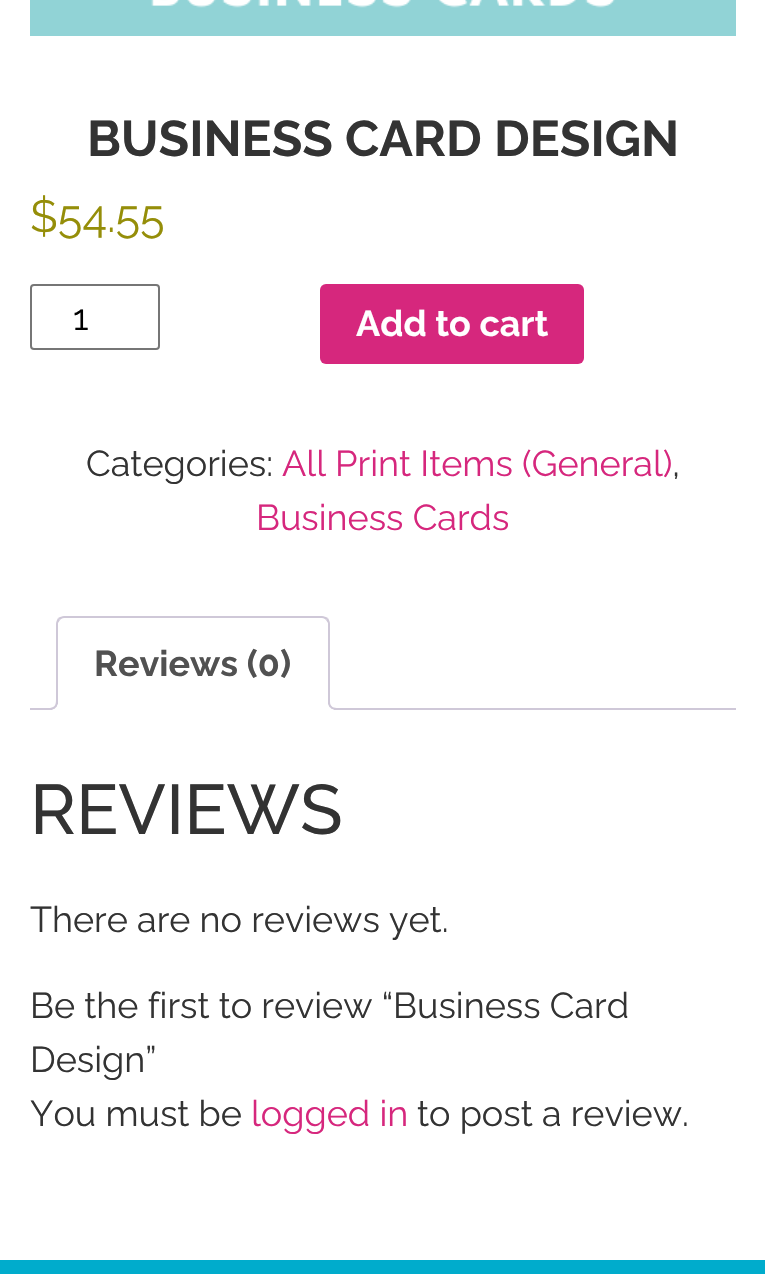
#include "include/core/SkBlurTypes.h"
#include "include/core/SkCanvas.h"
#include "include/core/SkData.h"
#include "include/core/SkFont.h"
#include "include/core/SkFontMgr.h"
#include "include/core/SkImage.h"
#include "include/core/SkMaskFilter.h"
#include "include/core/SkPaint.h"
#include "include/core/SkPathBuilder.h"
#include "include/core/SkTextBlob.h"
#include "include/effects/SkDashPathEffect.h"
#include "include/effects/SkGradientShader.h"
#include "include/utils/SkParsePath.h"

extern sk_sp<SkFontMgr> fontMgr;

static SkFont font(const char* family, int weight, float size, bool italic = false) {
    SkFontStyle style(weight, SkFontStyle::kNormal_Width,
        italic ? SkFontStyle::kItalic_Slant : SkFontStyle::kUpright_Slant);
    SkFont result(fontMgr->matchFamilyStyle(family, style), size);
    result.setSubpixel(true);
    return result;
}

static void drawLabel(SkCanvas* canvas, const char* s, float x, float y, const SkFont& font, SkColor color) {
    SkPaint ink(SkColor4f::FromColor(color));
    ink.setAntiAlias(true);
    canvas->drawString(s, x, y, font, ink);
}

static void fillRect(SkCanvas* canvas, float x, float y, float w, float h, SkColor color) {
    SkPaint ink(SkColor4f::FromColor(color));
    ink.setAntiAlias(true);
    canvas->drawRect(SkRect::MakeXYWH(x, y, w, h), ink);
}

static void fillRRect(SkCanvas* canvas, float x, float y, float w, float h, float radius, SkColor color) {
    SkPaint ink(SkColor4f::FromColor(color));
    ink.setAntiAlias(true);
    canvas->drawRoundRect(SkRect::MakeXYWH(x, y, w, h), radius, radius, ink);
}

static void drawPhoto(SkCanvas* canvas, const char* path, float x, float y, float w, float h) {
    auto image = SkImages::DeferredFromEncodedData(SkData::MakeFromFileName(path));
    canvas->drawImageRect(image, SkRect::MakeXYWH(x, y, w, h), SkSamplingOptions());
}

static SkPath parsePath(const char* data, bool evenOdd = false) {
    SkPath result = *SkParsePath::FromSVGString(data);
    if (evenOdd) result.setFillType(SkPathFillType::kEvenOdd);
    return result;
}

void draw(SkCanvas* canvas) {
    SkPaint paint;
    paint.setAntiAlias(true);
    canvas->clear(0xFFFFFFFF);
    drawPhoto(canvas, "assets/img1.png", 30, 0, 706, 36);
    SkFont font1 = font("Raleway", 700, 50);
    drawLabel(canvas, "BUSINESS CARD DESIGN", 87, 156, font1, 0xFF333333);
    SkFont font2 = font("Raleway", 400, 45);
    drawLabel(canvas, "$54.55", 30, 232, font2, 0xFF958E09);
    paint.setStroke(true);
    paint.setStrokeWidth(2);
    paint.setColor(0xFF767676);
    canvas->drawRoundRect(SkRect::MakeXYWH(31, 285, 128, 64), 3, 3, paint);
    SkFont font3 = font("Raleway", 400, 36);
    drawLabel(canvas, "1", 73, 330, font3, 0xFF000000);
    fillRRect(canvas, 320, 284, 264, 80, 6, 0xFFD6277D);
    SkFont font4 = font("Raleway", 700, 36);
    drawLabel(canvas, "Add to cart", 356, 336, font4, 0xFFFFFFFF);
    drawLabel(canvas, "Categories:", 86, 476, font3, 0xFF333333);
    drawLabel(canvas, "All Print Items (General)", 282, 476, font3, 0xFFD6277D);
    drawLabel(canvas, ",", 672, 476, font3, 0xFF333333);
    drawLabel(canvas, "Business Cards", 256, 530, font3, 0xFFD6277D);
    fillRect(canvas, 30, 708, 706, 2, 0xFFCFC8D8);
    paint.setStroke(false);
    paint.setColor(0xFFFFFFFF);
    canvas->drawPath(parsePath("M64 616H322C326.5 616 330 619.5 330 624V710H56V624C56 619.5 59.5 616 64 616Z"), paint);
    paint.setColor(0xFFCFC8D8);
    canvas->drawPath(parsePath("M64 616C62 616 60 617 58 618L60 620C61 619 62 618 64 618H322C324 618 325 619 326 620L328 618C326 617 324 616 322 616Z"), paint);
    canvas->drawPath(parsePath("M330 710V624C330 622 329 620 328 618L326 620L328 623V708Z"), paint);
    paint.setColor(0xFFFFFFFF);
    canvas->drawPath(parsePath("M330 710L328 708H58L56 710Z"), paint);
    paint.setColor(0xFFCFC8D8);
    canvas->drawPath(parsePath("M56 710L58 708V623L60 620L58 618C57 620 56 622 56 624Z"), paint);
    drawLabel(canvas, "Reviews (0)", 94, 676, font4, 0xFF515151);
    canvas->save();
    canvas->clipRect(SkRect::MakeXYWH(30, 616, 706, 94));
    paint.setColor(0xFFFFFFFF);
    canvas->drawPath(parsePath("M52 709.5V714C59 714 62 711 62 704H57.5C57 707 55 709 52 709.5Z"), paint);
    canvas->restore();
    paint.setColor(0xFFCFC8D8);
    canvas->drawPath(parsePath("M48 700H58C58 707 55 710 48 710ZM48 700H56C56 706 54 708 48 708Z", true), paint);
    canvas->save();
    canvas->clipRect(SkRect::MakeXYWH(30, 616, 706, 94));
    paint.setColor(0xFFFFFFFF);
    canvas->drawPath(parsePath("M324 704C324 711 327 714 334 714V709.5C331 709 329 707 328.5 704Z"), paint);
    canvas->restore();
    paint.setColor(0xFFCFC8D8);
    canvas->drawPath(parsePath("M328 700H338V710C333 710 328 708 328 702ZM330 700H338V708C334 708 330 707 330 702Z", true), paint);
    SkFont font5 = font("Raleway", 500, 70);
    drawLabel(canvas, "REVIEWS", 30, 834, font5, 0xFF333333);
    drawLabel(canvas, "There are no reviews yet.", 30, 932, font3, 0xFF333333);
    drawLabel(canvas, "Be the first to review “Business Card", 30, 1018, font3, 0xFF333333);
    drawLabel(canvas, "Design”", 30, 1072, font3, 0xFF333333);
    drawLabel(canvas, "You must be", 30, 1126, font3, 0xFF333333);
    drawLabel(canvas, "logged in", 251, 1126, font3, 0xFFD6277D);
    drawLabel(canvas, "to post a review.", 417, 1126, font3, 0xFF333333);
    fillRect(canvas, 0, 1260, 765, 14, 0xFF00ACCC);
}
